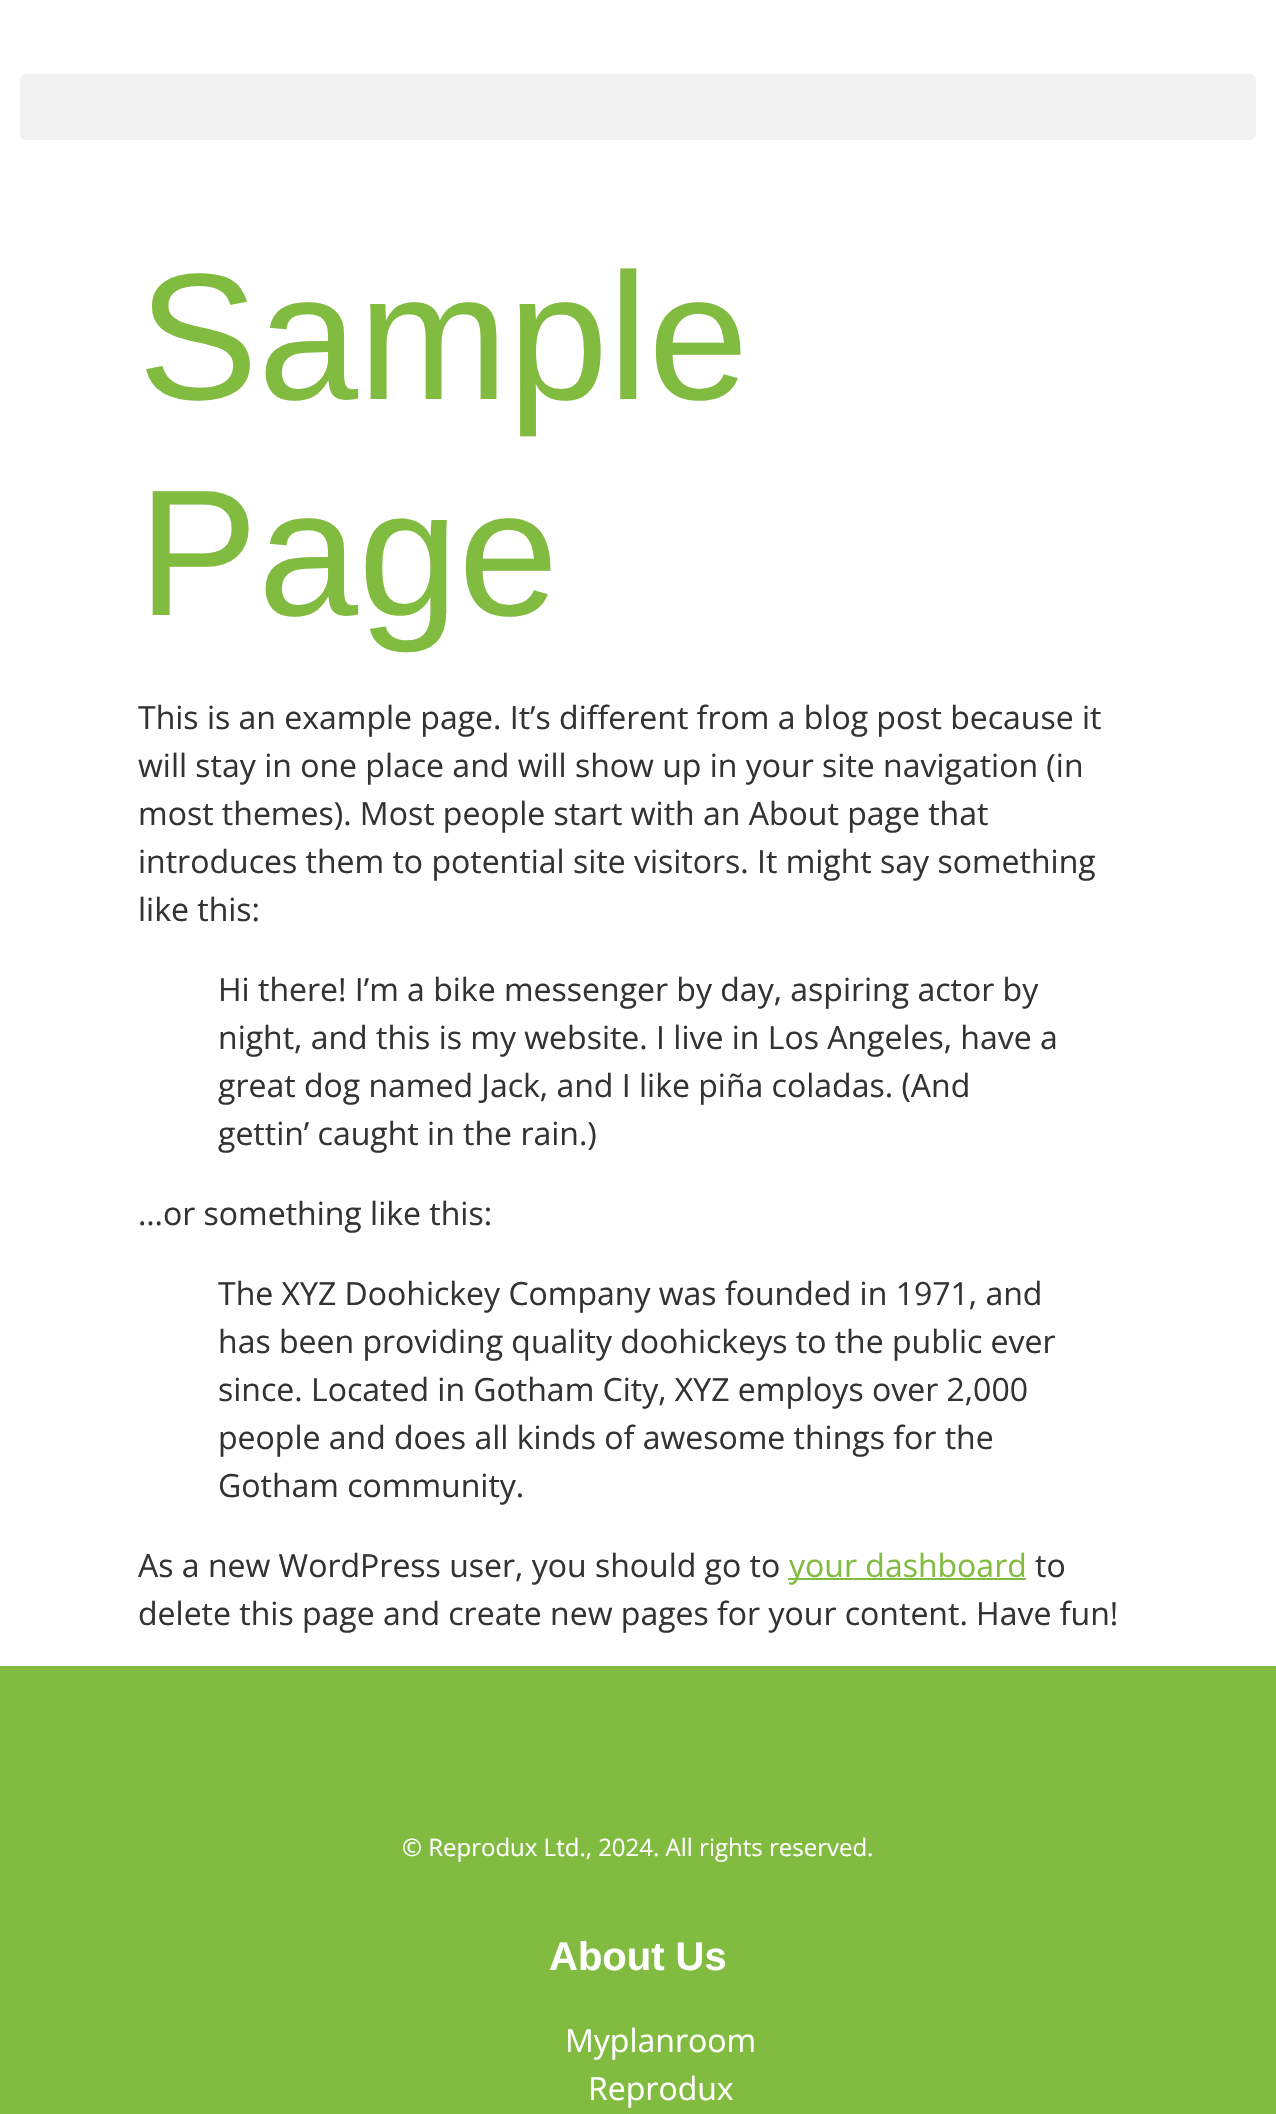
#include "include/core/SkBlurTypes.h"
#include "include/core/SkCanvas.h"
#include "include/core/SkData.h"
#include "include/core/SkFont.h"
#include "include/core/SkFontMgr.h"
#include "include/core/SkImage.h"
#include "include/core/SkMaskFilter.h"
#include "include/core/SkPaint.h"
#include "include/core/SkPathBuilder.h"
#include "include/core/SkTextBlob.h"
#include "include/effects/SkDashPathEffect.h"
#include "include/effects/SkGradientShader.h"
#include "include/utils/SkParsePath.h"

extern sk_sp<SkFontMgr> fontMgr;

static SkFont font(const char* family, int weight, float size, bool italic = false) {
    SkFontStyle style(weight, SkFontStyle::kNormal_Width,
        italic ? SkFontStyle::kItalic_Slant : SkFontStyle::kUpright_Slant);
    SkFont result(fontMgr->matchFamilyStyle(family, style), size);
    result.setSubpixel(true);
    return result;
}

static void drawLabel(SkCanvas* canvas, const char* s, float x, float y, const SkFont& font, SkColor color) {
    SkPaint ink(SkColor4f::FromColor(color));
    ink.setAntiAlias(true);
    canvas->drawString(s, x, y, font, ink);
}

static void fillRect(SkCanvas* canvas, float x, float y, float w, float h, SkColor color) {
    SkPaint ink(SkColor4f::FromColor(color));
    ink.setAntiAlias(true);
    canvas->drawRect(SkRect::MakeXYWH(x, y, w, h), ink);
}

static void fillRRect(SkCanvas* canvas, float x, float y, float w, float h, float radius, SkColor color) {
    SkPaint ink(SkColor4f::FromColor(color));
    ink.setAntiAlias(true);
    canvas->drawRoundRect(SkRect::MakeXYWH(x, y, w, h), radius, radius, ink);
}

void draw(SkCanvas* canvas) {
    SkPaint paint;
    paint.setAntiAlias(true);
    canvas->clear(0xFFFFFFFF);
    fillRRect(canvas, 20, 74, 1236, 66, 6, 0xFFF2F2F2);
    SkFont font1 = font("Liberation Sans", 400, 180);
    drawLabel(canvas, "Sample", 138, 399, font1, 0xFF81BB3F);
    drawLabel(canvas, "Page", 138, 615, font1, 0xFF81BB3F);
    SkFont font2 = font("Open Sans", 400, 32);
    drawLabel(canvas, "This is an example page. It’s different from a blog post because it", 138, 729, font2, 0xFF333333);
    drawLabel(canvas, "will stay in one place and will show up in your site navigation (in", 138, 777, font2, 0xFF333333);
    drawLabel(canvas, "most themes). Most people start with an About page that", 138, 825, font2, 0xFF333333);
    drawLabel(canvas, "introduces them to potential site visitors. It might say something", 138, 873, font2, 0xFF333333);
    drawLabel(canvas, "like this:", 138, 921, font2, 0xFF333333);
    drawLabel(canvas, "Hi there! I’m a bike messenger by day, aspiring actor by", 218, 1001, font2, 0xFF333333);
    drawLabel(canvas, "night, and this is my website. I live in Los Angeles, have a", 218, 1049, font2, 0xFF333333);
    drawLabel(canvas, "great dog named Jack, and I like piña coladas. (And", 218, 1097, font2, 0xFF333333);
    drawLabel(canvas, "gettin’ caught in the rain.)", 218, 1145, font2, 0xFF333333);
    drawLabel(canvas, "…or something like this:", 138, 1225, font2, 0xFF333333);
    drawLabel(canvas, "The XYZ Doohickey Company was founded in 1971, and", 218, 1305, font2, 0xFF333333);
    drawLabel(canvas, "has been providing quality doohickeys to the public ever", 218, 1353, font2, 0xFF333333);
    drawLabel(canvas, "since. Located in Gotham City, XYZ employs over 2,000", 218, 1401, font2, 0xFF333333);
    drawLabel(canvas, "people and does all kinds of awesome things for the", 218, 1449, font2, 0xFF333333);
    drawLabel(canvas, "Gotham community.", 218, 1497, font2, 0xFF333333);
    drawLabel(canvas, "As a new WordPress user, you should go to", 138, 1577, font2, 0xFF333333);
    fillRect(canvas, 788, 1578, 238, 2, 0xFF81BB3F);
    drawLabel(canvas, "your dashboard", 789, 1577, font2, 0xFF81BB3F);
    drawLabel(canvas, "to", 1035, 1577, font2, 0xFF333333);
    drawLabel(canvas, "delete this page and create new pages for your content. Have fun!", 138, 1625, font2, 0xFF333333);
    fillRect(canvas, 0, 1666, 1276, 448, 0xFF81BB3F);
    SkFont font3 = font("Open Sans", 400, 24);
    drawLabel(canvas, "© Reprodux Ltd., 2024. All rights reserved.", 402, 1856, font3, 0xFFFFFFFF);
    SkFont font4 = font("Liberation Sans", 700, 40);
    drawLabel(canvas, "About Us", 549, 1970, font4, 0xFFFFFFFF);
    drawLabel(canvas, "Myplanroom", 565, 2052, font2, 0xFFFFFFFF);
    drawLabel(canvas, "Reprodux", 588, 2100, font2, 0xFFFFFFFF);
}
